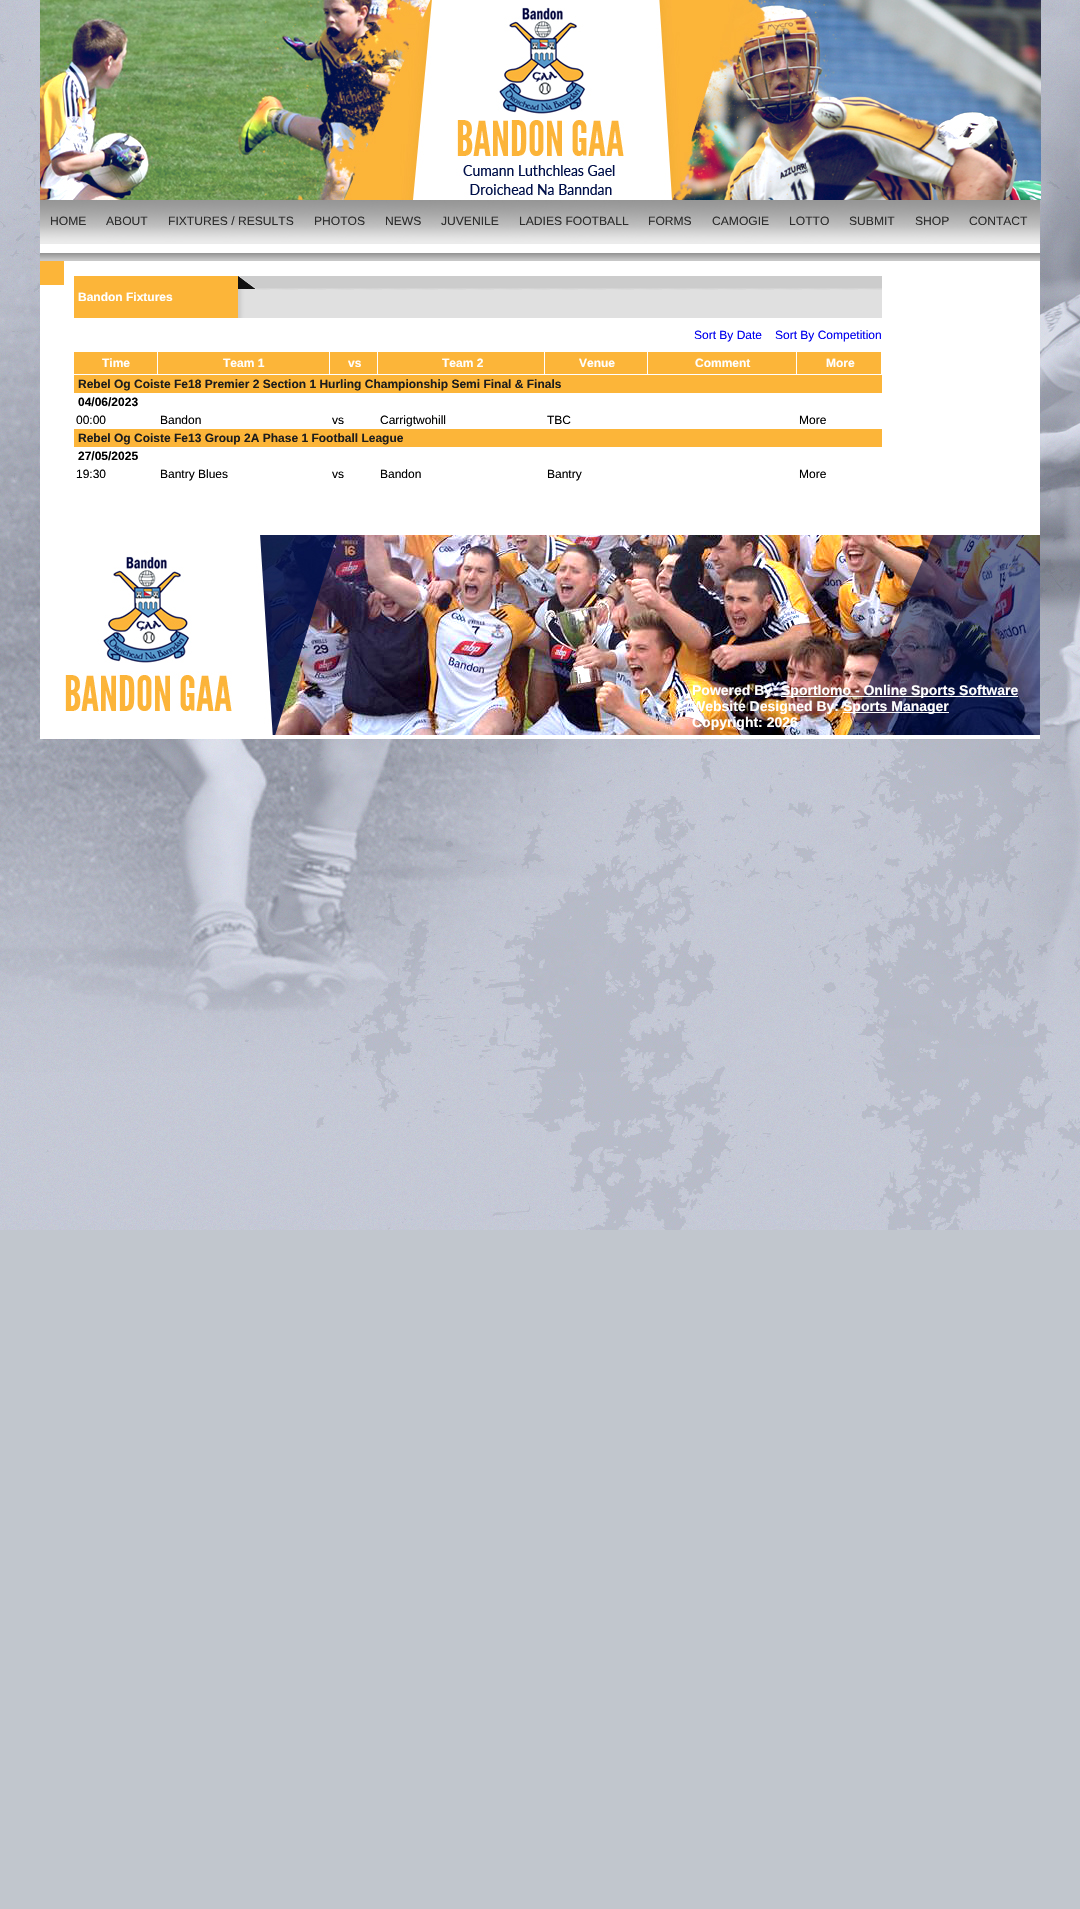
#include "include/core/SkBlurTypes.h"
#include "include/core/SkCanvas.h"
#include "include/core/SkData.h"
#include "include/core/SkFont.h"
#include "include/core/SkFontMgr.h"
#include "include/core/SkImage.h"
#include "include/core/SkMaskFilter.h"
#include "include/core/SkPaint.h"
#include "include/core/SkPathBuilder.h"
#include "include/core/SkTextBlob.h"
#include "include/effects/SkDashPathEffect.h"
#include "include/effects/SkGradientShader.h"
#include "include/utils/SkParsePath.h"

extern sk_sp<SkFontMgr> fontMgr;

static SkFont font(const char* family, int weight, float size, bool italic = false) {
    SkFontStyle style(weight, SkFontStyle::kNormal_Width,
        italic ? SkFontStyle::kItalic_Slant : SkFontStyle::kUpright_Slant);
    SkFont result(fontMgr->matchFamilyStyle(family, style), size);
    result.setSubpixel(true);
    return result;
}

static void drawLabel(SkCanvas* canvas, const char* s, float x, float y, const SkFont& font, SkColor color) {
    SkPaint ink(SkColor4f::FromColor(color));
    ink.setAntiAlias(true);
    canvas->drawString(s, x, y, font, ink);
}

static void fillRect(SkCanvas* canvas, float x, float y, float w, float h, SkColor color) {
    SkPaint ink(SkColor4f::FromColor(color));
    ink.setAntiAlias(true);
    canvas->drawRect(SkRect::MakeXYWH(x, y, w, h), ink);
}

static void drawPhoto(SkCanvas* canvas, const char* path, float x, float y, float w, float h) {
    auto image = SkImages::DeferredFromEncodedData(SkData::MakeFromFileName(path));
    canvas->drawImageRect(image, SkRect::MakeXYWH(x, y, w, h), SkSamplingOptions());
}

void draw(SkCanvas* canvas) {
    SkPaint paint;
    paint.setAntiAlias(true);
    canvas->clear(0xFFC1C6CD);
    drawPhoto(canvas, "assets/img1.png", 0, 0, 1080, 1230);
    fillRect(canvas, 40, 244, 1000, 495, 0xFFFFFFFF);
    drawPhoto(canvas, "assets/img2.png", 40, 0, 1001, 200);
    drawPhoto(canvas, "assets/img3.png", 40, 200, 1000, 44);
    SkFont font1 = font("Liberation Sans", 400, 12.1f);
    drawLabel(canvas, "HOME", 50, 225, font1, 0xFF2C2C2C);
    drawLabel(canvas, "ABOUT", 106, 225, font1, 0xFF2C2C2C);
    drawLabel(canvas, "FIXTURES / RESULTS", 168, 225, font1, 0xFF2C2C2C);
    drawLabel(canvas, "PHOTOS", 314, 225, font1, 0xFF2C2C2C);
    drawLabel(canvas, "NEWS", 385, 225, font1, 0xFF2C2C2C);
    drawLabel(canvas, "JUVENILE", 441, 225, font1, 0xFF2C2C2C);
    drawLabel(canvas, "LADIES FOOTBALL", 519, 225, font1, 0xFF2C2C2C);
    drawLabel(canvas, "FORMS", 648, 225, font1, 0xFF2C2C2C);
    drawLabel(canvas, "CAMOGIE", 712, 225, font1, 0xFF2C2C2C);
    drawLabel(canvas, "LOTTO", 789, 225, font1, 0xFF2C2C2C);
    drawLabel(canvas, "SUBMIT", 849, 225, font1, 0xFF2C2C2C);
    drawLabel(canvas, "SHOP", 915, 225, font1, 0xFF2C2C2C);
    drawLabel(canvas, "CONTACT", 969, 225, font1, 0xFF2C2C2C);
    drawPhoto(canvas, "assets/img4.png", 40, 253, 1000, 8);
    fillRect(canvas, 40, 261, 24, 24, 0xFFFCB539);
    fillRect(canvas, 238, 276, 644, 14, 0xFFCCCCCC);
    drawPhoto(canvas, "assets/img5.png", 254, 288, 628, 30);
    fillRect(canvas, 74, 276, 164, 42, 0xFFFCB539);
    SkFont font2 = font("Liberation Sans", 700, 12);
    drawLabel(canvas, "Bandon Fixtures", 78, 301, font2, 0xFFFFFFFF);
    drawPhoto(canvas, "assets/img6.png", 238, 276, 18, 42);
    SkFont font3 = font("Liberation Sans", 400, 12);
    drawLabel(canvas, "Sort By Date", 694, 339, font3, 0xFF0000EE);
    drawLabel(canvas, "Sort By Competition", 775, 339, font3, 0xFF0000EE);
    fillRect(canvas, 74, 352, 83, 22, 0xFFFCB539);
    drawLabel(canvas, "Time", 102, 367, font2, 0xFFFFFFFF);
    fillRect(canvas, 158, 352, 171, 22, 0xFFFCB539);
    drawLabel(canvas, "Team 1", 223, 367, font2, 0xFFFFFFFF);
    fillRect(canvas, 330, 352, 47, 22, 0xFFFCB539);
    drawLabel(canvas, "vs", 348, 367, font2, 0xFFFFFFFF);
    fillRect(canvas, 378, 352, 166, 22, 0xFFFCB539);
    drawLabel(canvas, "Team 2", 442, 367, font2, 0xFFFFFFFF);
    fillRect(canvas, 545, 352, 102, 22, 0xFFFCB539);
    drawLabel(canvas, "Venue", 579, 367, font2, 0xFFFFFFFF);
    fillRect(canvas, 648, 352, 148, 22, 0xFFFCB539);
    drawLabel(canvas, "Comment", 695, 367, font2, 0xFFFFFFFF);
    fillRect(canvas, 797, 352, 84, 22, 0xFFFCB539);
    drawLabel(canvas, "More", 826, 367, font2, 0xFFFFFFFF);
    fillRect(canvas, 74, 375, 808, 18, 0xFFFCB539);
    drawLabel(canvas, "Rebel Og Coiste Fe18 Premier 2 Section 1 Hurling Championship Semi Final & Finals", 78, 388, font2, 0xFF1C1C1C);
    drawLabel(canvas, "04/06/2023", 78, 406, font2, 0xFF000000);
    drawLabel(canvas, "00:00", 76, 424, font3, 0xFF000000);
    drawLabel(canvas, "Bandon", 160, 424, font3, 0xFF000000);
    drawLabel(canvas, "vs", 332, 424, font3, 0xFF000000);
    drawLabel(canvas, "Carrigtwohill", 380, 424, font3, 0xFF000000);
    drawLabel(canvas, "TBC", 547, 424, font3, 0xFF000000);
    drawLabel(canvas, "More", 799, 424, font3, 0xFF000000);
    fillRect(canvas, 74, 429, 808, 18, 0xFFFCB539);
    drawLabel(canvas, "Rebel Og Coiste Fe13 Group 2A Phase 1 Football League", 78, 442, font2, 0xFF1C1C1C);
    drawLabel(canvas, "27/05/2025", 78, 460, font2, 0xFF000000);
    drawLabel(canvas, "19:30", 76, 478, font3, 0xFF000000);
    drawLabel(canvas, "Bantry Blues", 160, 478, font3, 0xFF000000);
    drawLabel(canvas, "vs", 332, 478, font3, 0xFF000000);
    drawLabel(canvas, "Bandon", 380, 478, font3, 0xFF000000);
    drawLabel(canvas, "Bantry", 547, 478, font3, 0xFF000000);
    drawLabel(canvas, "More", 799, 478, font3, 0xFF000000);
    drawPhoto(canvas, "assets/img7.png", 65, 535, 975, 200);
    SkFont font4 = font("Liberation Sans", 700, 14);
    drawLabel(canvas, "Powered By", 692, 695, font4, 0xFFFFFFFF);
    fillRect(canvas, 781, 696, 237, 1, 0xFFFFFFFF);
    drawLabel(canvas, "Sportlomo - Online Sports Software", 781, 695, font4, 0xFFFFFFFF);
    drawLabel(canvas, "Website Designed By:", 692, 711, font4, 0xFFFFFFFF);
    fillRect(canvas, 843, 712, 106, 1, 0xFFFFFFFF);
    drawLabel(canvas, "Sports Manager", 843, 711, font4, 0xFFFFFFFF);
    drawLabel(canvas, "Copyright: 2026", 692, 727, font4, 0xFFFFFFFF);
}
